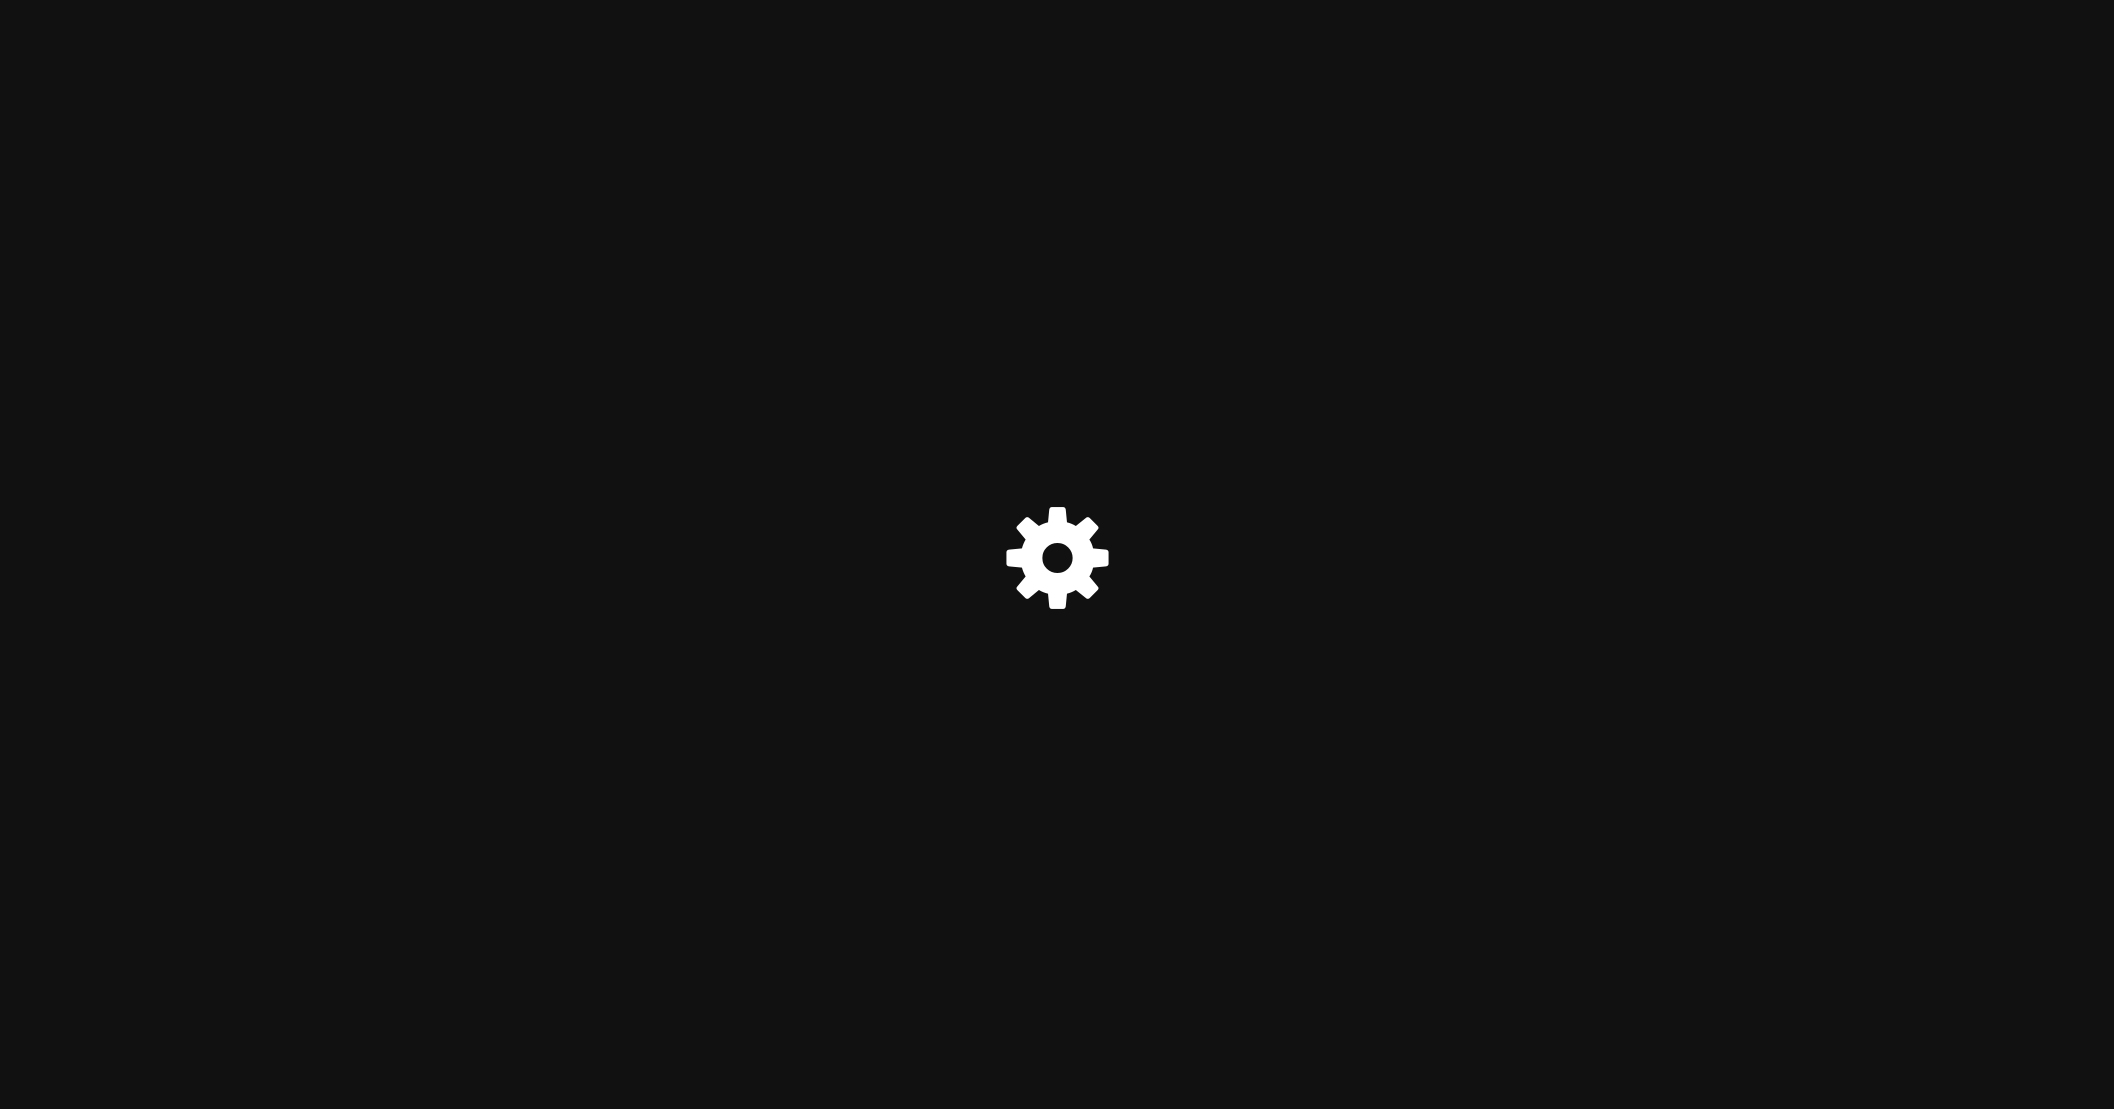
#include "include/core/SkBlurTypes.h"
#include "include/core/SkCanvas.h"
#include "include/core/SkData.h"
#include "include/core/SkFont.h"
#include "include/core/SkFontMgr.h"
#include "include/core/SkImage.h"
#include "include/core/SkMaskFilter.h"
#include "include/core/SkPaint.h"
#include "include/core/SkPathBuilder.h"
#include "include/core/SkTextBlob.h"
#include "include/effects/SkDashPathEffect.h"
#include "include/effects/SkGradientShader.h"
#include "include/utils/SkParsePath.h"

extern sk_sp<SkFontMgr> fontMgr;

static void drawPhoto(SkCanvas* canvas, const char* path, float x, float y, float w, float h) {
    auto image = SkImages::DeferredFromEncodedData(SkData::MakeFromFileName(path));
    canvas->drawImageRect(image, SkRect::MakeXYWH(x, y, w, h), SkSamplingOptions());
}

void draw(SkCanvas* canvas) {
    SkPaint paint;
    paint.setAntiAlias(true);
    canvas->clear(0xFF111111);
    drawPhoto(canvas, "assets/img1.png", 1006, 507, 103, 102);
}
